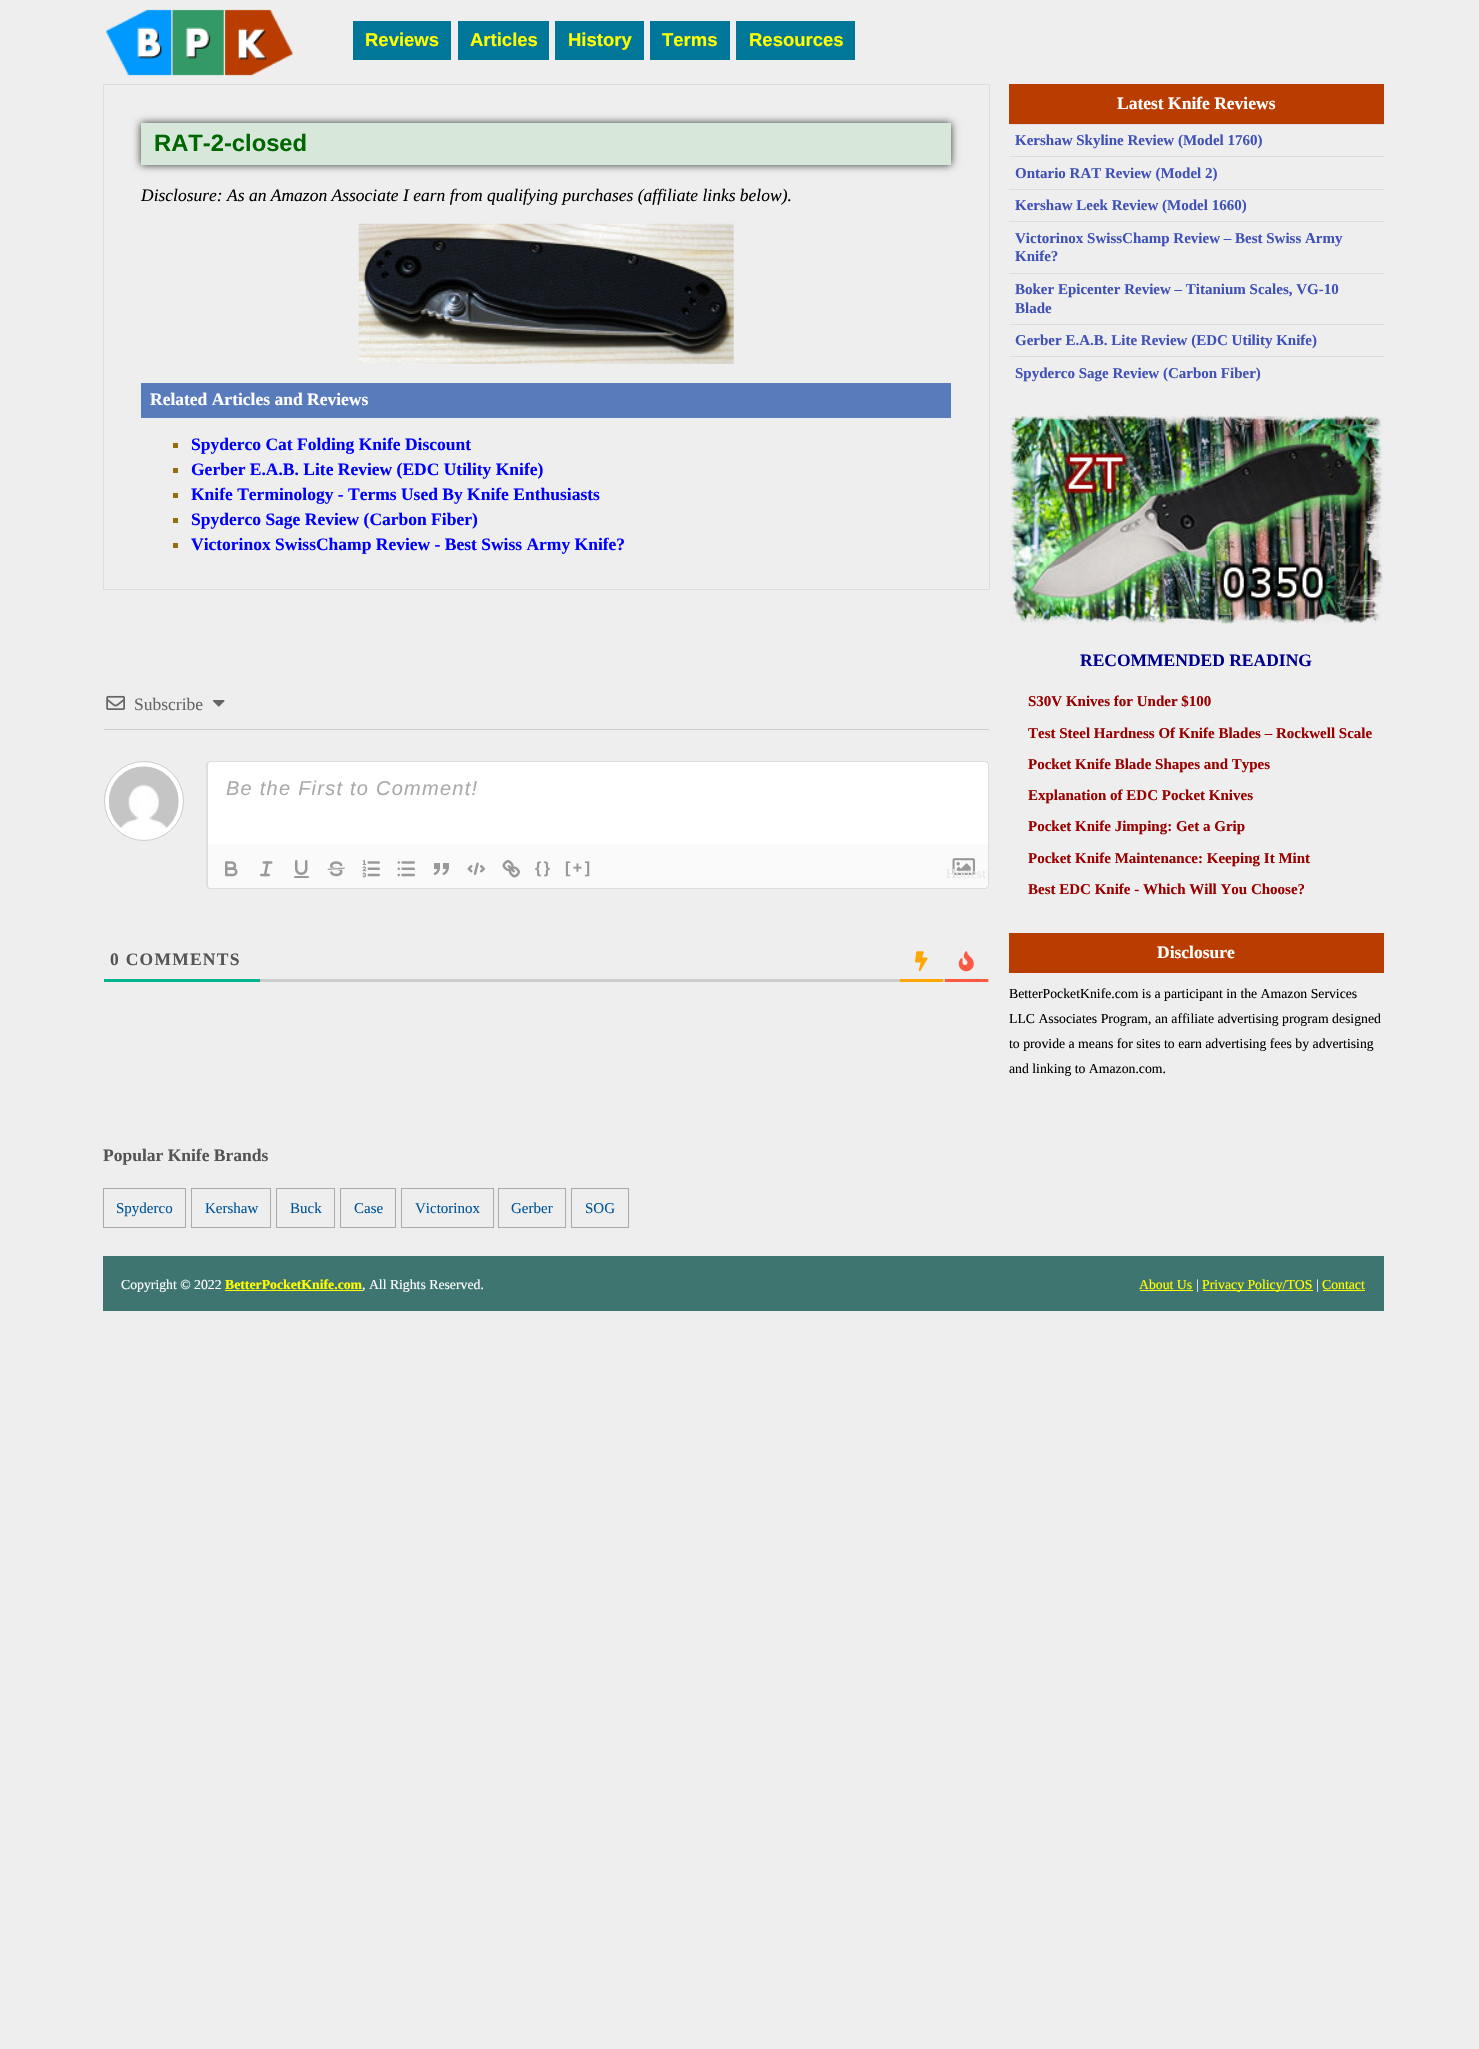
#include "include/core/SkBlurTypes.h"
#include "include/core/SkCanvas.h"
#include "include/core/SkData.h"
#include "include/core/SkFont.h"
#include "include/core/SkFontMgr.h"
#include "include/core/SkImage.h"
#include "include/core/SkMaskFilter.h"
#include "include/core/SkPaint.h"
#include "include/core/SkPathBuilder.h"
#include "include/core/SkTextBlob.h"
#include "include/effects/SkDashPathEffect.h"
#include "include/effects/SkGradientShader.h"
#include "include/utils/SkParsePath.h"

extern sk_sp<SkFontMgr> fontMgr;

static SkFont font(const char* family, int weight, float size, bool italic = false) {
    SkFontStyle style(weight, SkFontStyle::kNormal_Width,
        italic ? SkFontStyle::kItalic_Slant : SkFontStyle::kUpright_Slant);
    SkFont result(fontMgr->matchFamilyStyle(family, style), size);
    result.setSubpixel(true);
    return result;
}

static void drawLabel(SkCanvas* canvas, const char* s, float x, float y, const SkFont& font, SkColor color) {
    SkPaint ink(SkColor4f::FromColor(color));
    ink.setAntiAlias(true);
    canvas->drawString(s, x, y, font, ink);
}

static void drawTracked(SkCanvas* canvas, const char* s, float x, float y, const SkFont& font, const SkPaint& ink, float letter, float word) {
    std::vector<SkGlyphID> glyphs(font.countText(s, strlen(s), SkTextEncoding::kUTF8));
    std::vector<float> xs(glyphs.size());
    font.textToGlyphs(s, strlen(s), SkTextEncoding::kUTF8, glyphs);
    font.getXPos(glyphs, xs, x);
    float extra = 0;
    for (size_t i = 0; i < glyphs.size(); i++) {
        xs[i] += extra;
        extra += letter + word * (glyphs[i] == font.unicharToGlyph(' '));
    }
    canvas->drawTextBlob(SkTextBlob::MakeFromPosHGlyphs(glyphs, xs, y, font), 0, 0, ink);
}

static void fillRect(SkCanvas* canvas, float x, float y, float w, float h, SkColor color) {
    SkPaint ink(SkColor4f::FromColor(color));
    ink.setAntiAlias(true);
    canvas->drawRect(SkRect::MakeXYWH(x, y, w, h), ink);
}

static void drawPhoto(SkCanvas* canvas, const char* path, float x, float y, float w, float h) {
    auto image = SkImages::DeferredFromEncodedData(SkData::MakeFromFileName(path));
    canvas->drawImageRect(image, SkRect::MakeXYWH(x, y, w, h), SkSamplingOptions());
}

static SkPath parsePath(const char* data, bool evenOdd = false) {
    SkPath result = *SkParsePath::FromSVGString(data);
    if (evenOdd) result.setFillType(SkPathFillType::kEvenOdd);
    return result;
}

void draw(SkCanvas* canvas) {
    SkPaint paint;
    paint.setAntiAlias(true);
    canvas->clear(0xFFEEEEEE);
    drawPhoto(canvas, "assets/img1.png", 106, 9, 187, 67);
    fillRect(canvas, 353, 21, 98, 39, 0xFF007799);
    SkFont font1 = font("Liberation Sans", 700, 18.5f);
    drawLabel(canvas, "Reviews", 365, 46, font1, 0xFFFFFF00);
    fillRect(canvas, 458, 21, 91, 39, 0xFF007799);
    drawLabel(canvas, "Articles", 470, 46, font1, 0xFFFFFF00);
    fillRect(canvas, 555, 21, 89, 39, 0xFF007799);
    drawLabel(canvas, "History", 568, 46, font1, 0xFFFFFF00);
    fillRect(canvas, 650, 21, 80, 39, 0xFF007799);
    drawLabel(canvas, "Terms", 662, 46, font1, 0xFFFFFF00);
    fillRect(canvas, 736, 21, 119, 39, 0xFF007799);
    drawLabel(canvas, "Resources", 749, 46, font1, 0xFFFFFF00);
    paint.setStroke(true);
    paint.setStrokeWidth(1);
    paint.setColor(0xFFDDDDDD);
    canvas->drawRect(SkRect::MakeXYWH(103.5f, 84.5f, 886, 505), paint);
    paint.setStroke(false);
    paint.setColor(0xFF333333);
    paint.setMaskFilter(SkMaskFilter::MakeBlur(kNormal_SkBlurStyle, 4));
    canvas->drawRect(SkRect::MakeXYWH(141, 123, 810, 42), paint);
    paint.setMaskFilter(nullptr);
    fillRect(canvas, 141, 123, 810, 42, 0xFFD7E8DB);
    SkFont font2 = font("Liberation Sans", 700, 23.75f);
    drawLabel(canvas, "RAT-2-closed", 154, 151, font2, 0xFF006600);
    SkFont font3 = font("Liberation Serif", 400, 17.5f, true);
    drawLabel(canvas, "Disclosure: As an Amazon Associate I earn from qualifying purchases (affiliate links below).", 141, 201, font3, 0xFF000000);
    drawPhoto(canvas, "assets/img2.png", 358, 223, 376, 141);
    fillRect(canvas, 141, 383, 810, 35, 0xFF587BBC);
    SkFont font4 = font("Liberation Serif", 700, 17.5f);
    drawLabel(canvas, "Related Articles and Reviews", 150, 405, font4, 0xFFFFFFFF);
    fillRect(canvas, 173, 443, 5, 5, 0xFF966C10);
    drawLabel(canvas, "Spyderco Cat Folding Knife Discount", 191, 450, font4, 0xFF0000FF);
    fillRect(canvas, 173, 468, 5, 5, 0xFF966C10);
    drawLabel(canvas, "Gerber E.A.B. Lite Review (EDC Utility Knife)", 191, 475, font4, 0xFF0000FF);
    fillRect(canvas, 173, 493, 5, 5, 0xFF966C10);
    drawLabel(canvas, "Knife Terminology - Terms Used By Knife Enthusiasts", 191, 500, font4, 0xFF0000FF);
    fillRect(canvas, 173, 518, 5, 5, 0xFF966C10);
    drawLabel(canvas, "Spyderco Sage Review (Carbon Fiber)", 191, 525, font4, 0xFF0000FF);
    fillRect(canvas, 173, 543, 5, 5, 0xFF966C10);
    drawLabel(canvas, "Victorinox SwissChamp Review - Best Swiss Army Knife?", 191, 550, font4, 0xFF0000FF);
    fillRect(canvas, 104, 729, 885, 1, 0xFFCCCCCC);
    drawPhoto(canvas, "assets/img3.png", 106, 695, 19, 15);
    SkFont font5 = font("Liberation Serif", 400, 17.5f);
    drawLabel(canvas, "Subscribe", 134, 710, font5, 0xFF666666);
    drawPhoto(canvas, "assets/img4.png", 213, 700, 12, 7);
    paint.setColor(0xFFFFFFFF);
    canvas->drawCircle(144, 801, 39.5f, paint);
    paint.setStroke(true);
    paint.setColor(0xFFCCCCCC);
    canvas->drawCircle(144, 801, 39.5f, paint);
    drawPhoto(canvas, "assets/img5.png", 108, 766, 71, 63);
    paint.setStroke(false);
    paint.setColor(0xFFFFFFFF);
    canvas->drawPath(parsePath("M210 761H985C987 761 989 763 989 765V844H206V765C206 763 208 761 210 761Z"), paint);
    paint.setColor(0xFFDDDDDD);
    canvas->drawPath(parsePath("M210 761H985C987 761 989 763 989 765V844H206V765C206 763 208 761 210 761ZM210 762H985C986 762 988 764 988 765V844H208V765C208 764 209 762 210 762Z", true), paint);
    SkFont font6 = font("Liberation Sans", 400, 20, true);
    paint.setColor(0xFFAAAAAA);
    drawTracked(canvas, "Be the First to Comment!", 226, 795, font6, paint, 1.25f, 0);
    paint.setColor(0xFFFAFAFA);
    canvas->drawPath(parsePath("M206 844H989V885C989 887 987 889 985 889H210C208 889 206 887 206 885Z"), paint);
    paint.setColor(0xFFDDDDDD);
    canvas->drawPath(parsePath("M206 844H989V885C989 887 987 889 985 889H210C208 889 206 887 206 885ZM208 844H988V885C988 886 986 888 985 888H210C209 888 208 886 208 885Z", true), paint);
    drawPhoto(canvas, "assets/img6.png", 225, 861, 13, 16);
    drawPhoto(canvas, "assets/img7.png", 260, 861, 13, 16);
    drawPhoto(canvas, "assets/img8.png", 294, 860, 15, 18);
    drawPhoto(canvas, "assets/img9.png", 327, 861, 18, 16);
    drawPhoto(canvas, "assets/img10.png", 362, 860, 18, 18);
    drawPhoto(canvas, "assets/img11.png", 397, 861, 18, 16);
    drawPhoto(canvas, "assets/img12.png", 433, 863, 16, 12);
    drawPhoto(canvas, "assets/img13.png", 467, 862, 18, 13);
    drawPhoto(canvas, "assets/img14.png", 502, 860, 18, 18);
    SkFont font7 = font("Liberation Sans", 700, 16);
    paint.setColor(0xFF999999);
    drawTracked(canvas, "{}", 535, 873, font7, paint, 2.5f, 0);
    drawTracked(canvas, "[+]", 565, 873, font7, paint, 2.5f, 0);
    drawPhoto(canvas, "assets/img15.png", 952, 858, 23, 17);
    fillRect(canvas, 260, 979, 729, 3, 0xFFCCCCCC);
    fillRect(canvas, 945, 979, 43, 3, 0xFFFC5844);
    SkFont font8 = font("Liberation Serif", 400, 13.75f);
    drawLabel(canvas, "Hottest", 946, 878, font8, 0xFFE7E7E7);
    drawPhoto(canvas, "assets/img16.png", 958, 951, 16, 21);
    fillRect(canvas, 900, 979, 43, 3, 0xFFFFA600);
    drawPhoto(canvas, "assets/img17.png", 915, 951, 13, 21);
    fillRect(canvas, 104, 979, 156, 3, 0xFF00B38F);
    paint.setColor(0xFF555555);
    drawTracked(canvas, "0 COMMENTS", 110, 965, font4, paint, 1.25f, 0);
    fillRect(canvas, 1009, 84, 375, 40, 0xFFB93D00);
    drawLabel(canvas, "Latest Knife Reviews", 1117, 109, font4, 0xFFFFFFFF);
    fillRect(canvas, 1009, 124, 375, 1, 0xFFDDDDDD);
    SkFont font9 = font("Liberation Serif", 700, 15);
    drawLabel(canvas, "Kershaw Skyline Review (Model 1760)", 1015, 145, font9, 0xFF4052B7);
    fillRect(canvas, 1009, 156, 375, 1, 0xFFDDDDDD);
    drawLabel(canvas, "Ontario RAT Review (Model 2)", 1015, 178, font9, 0xFF4052B7);
    fillRect(canvas, 1009, 189, 375, 1, 0xFFDDDDDD);
    drawLabel(canvas, "Kershaw Leek Review (Model 1660)", 1015, 210, font9, 0xFF4052B7);
    fillRect(canvas, 1009, 221, 375, 1, 0xFFDDDDDD);
    drawLabel(canvas, "Victorinox SwissChamp Review – Best Swiss Army", 1015, 243, font9, 0xFF4052B7);
    drawLabel(canvas, "Knife?", 1015, 261, font9, 0xFF4052B7);
    fillRect(canvas, 1009, 273, 375, 1, 0xFFDDDDDD);
    drawLabel(canvas, "Boker Epicenter Review – Titanium Scales, VG-10", 1015, 294, font9, 0xFF4052B7);
    drawLabel(canvas, "Blade", 1015, 313, font9, 0xFF4052B7);
    fillRect(canvas, 1009, 324, 375, 1, 0xFFDDDDDD);
    drawLabel(canvas, "Gerber E.A.B. Lite Review (EDC Utility Knife)", 1015, 345, font9, 0xFF4052B7);
    fillRect(canvas, 1009, 356, 375, 1, 0xFFDDDDDD);
    drawLabel(canvas, "Spyderco Sage Review (Carbon Fiber)", 1015, 378, font9, 0xFF4052B7);
    drawPhoto(canvas, "assets/img18.png", 1009, 414, 375, 210);
    drawLabel(canvas, "RECOMMENDED READING", 1080, 666, font4, 0xFF000090);
    drawLabel(canvas, "S30V Knives for Under $100", 1028, 706, font9, 0xFF990000);
    drawLabel(canvas, "Test Steel Hardness Of Knife Blades – Rockwell Scale", 1028, 738, font9, 0xFF990000);
    drawLabel(canvas, "Pocket Knife Blade Shapes and Types", 1028, 769, font9, 0xFF990000);
    drawLabel(canvas, "Explanation of EDC Pocket Knives", 1028, 800, font9, 0xFF990000);
    drawLabel(canvas, "Pocket Knife Jimping: Get a Grip", 1028, 831, font9, 0xFF990000);
    drawLabel(canvas, "Pocket Knife Maintenance: Keeping It Mint", 1028, 863, font9, 0xFF990000);
    drawLabel(canvas, "Best EDC Knife - Which Will You Choose?", 1028, 894, font9, 0xFF990000);
    fillRect(canvas, 1009, 933, 375, 40, 0xFFB93D00);
    drawLabel(canvas, "Disclosure", 1157, 958, font4, 0xFFFFFFFF);
    drawLabel(canvas, "BetterPocketKnife.com is a participant in the Amazon Services", 1009, 998, font8, 0xFF000000);
    drawLabel(canvas, "LLC Associates Program, an affiliate advertising program designed", 1009, 1023, font8, 0xFF000000);
    drawLabel(canvas, "to provide a means for sites to earn advertising fees by advertising", 1009, 1048, font8, 0xFF000000);
    drawLabel(canvas, "and linking to Amazon.com.", 1009, 1073, font8, 0xFF000000);
    drawLabel(canvas, "Popular Knife Brands", 103, 1161, font4, 0xFF555555);
    paint.setStroke(true);
    paint.setColor(0xFFAAAAAA);
    canvas->drawRect(SkRect::MakeXYWH(103.5f, 1188.5f, 82, 39), paint);
    SkFont font10 = font("Liberation Serif", 400, 15);
    drawLabel(canvas, "Spyderco", 116, 1213, font10, 0xFF005599);
    canvas->drawRect(SkRect::MakeXYWH(191.5f, 1188.5f, 79, 39), paint);
    drawLabel(canvas, "Kershaw", 205, 1213, font10, 0xFF005599);
    canvas->drawRect(SkRect::MakeXYWH(276.5f, 1188.5f, 58, 39), paint);
    drawLabel(canvas, "Buck", 290, 1213, font10, 0xFF005599);
    canvas->drawRect(SkRect::MakeXYWH(340.5f, 1188.5f, 55, 39), paint);
    drawLabel(canvas, "Case", 354, 1213, font10, 0xFF005599);
    canvas->drawRect(SkRect::MakeXYWH(401.5f, 1188.5f, 92, 39), paint);
    drawLabel(canvas, "Victorinox", 415, 1213, font10, 0xFF005599);
    canvas->drawRect(SkRect::MakeXYWH(498.5f, 1188.5f, 67, 39), paint);
    drawLabel(canvas, "Gerber", 511, 1213, font10, 0xFF005599);
    canvas->drawRect(SkRect::MakeXYWH(571.5f, 1188.5f, 57, 39), paint);
    drawLabel(canvas, "SOG", 585, 1213, font10, 0xFF005599);
    fillRect(canvas, 103, 1256, 1281, 55, 0xFF3F7570);
    drawLabel(canvas, "Copyright © 2022", 121, 1289, font8, 0xFFFFFFFF);
    SkFont font11 = font("Liberation Serif", 700, 13.75f);
    drawLabel(canvas, "BetterPocketKnife.com", 225, 1289, font11, 0xFFFFFF00);
    fillRect(canvas, 225, 1290, 138, 1, 0xFFFFFF00);
    drawLabel(canvas, ", All Rights Reserved.", 362, 1289, font8, 0xFFFFFFFF);
    drawLabel(canvas, "About Us", 1139, 1289, font8, 0xFFFFFF00);
    fillRect(canvas, 1140, 1290, 53, 1, 0xFFFFFF00);
    drawLabel(canvas, "|", 1196, 1289, font8, 0xFFFFFFFF);
    fillRect(canvas, 1203, 1290, 110, 1, 0xFFFFFF00);
    drawLabel(canvas, "Privacy Policy/TOS", 1202, 1289, font8, 0xFFFFFF00);
    drawLabel(canvas, "|", 1316, 1289, font8, 0xFFFFFFFF);
    drawLabel(canvas, "Contact", 1322, 1289, font8, 0xFFFFFF00);
    fillRect(canvas, 1323, 1290, 42, 1, 0xFFFFFF00);
}
